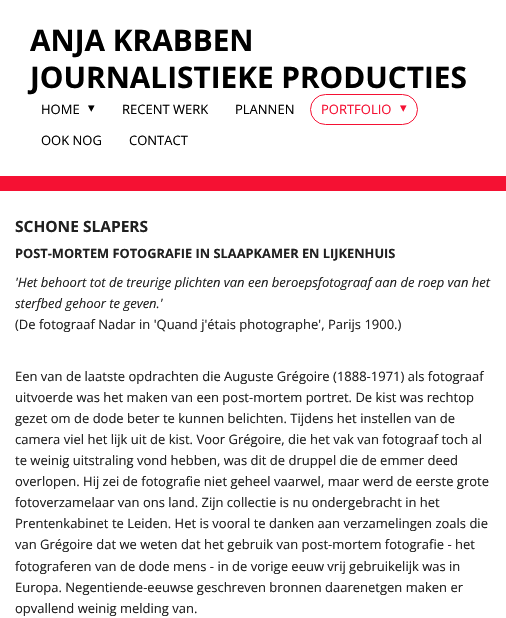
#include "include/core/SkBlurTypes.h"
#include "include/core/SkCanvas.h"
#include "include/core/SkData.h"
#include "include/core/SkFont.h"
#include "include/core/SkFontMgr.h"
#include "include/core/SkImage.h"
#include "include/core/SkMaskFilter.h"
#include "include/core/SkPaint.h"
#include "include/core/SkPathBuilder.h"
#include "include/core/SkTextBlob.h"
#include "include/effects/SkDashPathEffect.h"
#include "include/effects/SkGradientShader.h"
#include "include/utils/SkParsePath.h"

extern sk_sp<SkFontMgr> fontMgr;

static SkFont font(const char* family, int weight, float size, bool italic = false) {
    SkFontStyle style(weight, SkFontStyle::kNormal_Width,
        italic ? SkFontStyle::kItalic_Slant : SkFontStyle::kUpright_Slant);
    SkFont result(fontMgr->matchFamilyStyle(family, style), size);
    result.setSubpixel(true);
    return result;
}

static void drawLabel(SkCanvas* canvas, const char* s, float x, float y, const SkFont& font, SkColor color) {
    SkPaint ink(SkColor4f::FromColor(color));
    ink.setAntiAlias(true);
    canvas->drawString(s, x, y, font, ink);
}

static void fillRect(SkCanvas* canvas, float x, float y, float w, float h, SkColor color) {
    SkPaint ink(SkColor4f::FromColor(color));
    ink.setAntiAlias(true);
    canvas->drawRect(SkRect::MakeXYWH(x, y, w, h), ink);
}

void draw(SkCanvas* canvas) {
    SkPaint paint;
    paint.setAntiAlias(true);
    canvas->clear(0xFFFFFFFF);
    SkFont font1 = font("Open Sans", 700, 29.75f);
    drawLabel(canvas, "ANJA KRABBEN", 30, 51, font1, 0xFF000000);
    drawLabel(canvas, "JOURNALISTIEKE PRODUCTIES", 30, 88, font1, 0xFF000000);
    SkFont font2 = font("Open Sans", 400, 13);
    drawLabel(canvas, "HOME", 41, 114, font2, 0xFF000000);
    SkFont font3 = font("DejaVu Sans", 400, 13);
    drawLabel(canvas, "▾", 88, 112, font3, 0xFF000000);
    drawLabel(canvas, "RECENT WERK", 122, 114, font2, 0xFF000000);
    drawLabel(canvas, "PLANNEN", 235, 114, font2, 0xFF000000);
    paint.setStroke(true);
    paint.setStrokeWidth(1);
    paint.setColor(0xFFF51133);
    canvas->drawRoundRect(SkRect::MakeXYWH(310.5f, 94.5f, 107, 30), 15, 15, paint);
    drawLabel(canvas, "PORTFOLIO", 321, 114, font2, 0xFFF51133);
    drawLabel(canvas, "▾", 400, 112, font3, 0xFFF51133);
    drawLabel(canvas, "OOK NOG", 41, 145, font2, 0xFF000000);
    drawLabel(canvas, "CONTACT", 129, 145, font2, 0xFF000000);
    fillRect(canvas, 0, 176, 506, 15, 0xFFF51133);
    SkFont font4 = font("Open Sans", 700, 15.5f);
    drawLabel(canvas, "SCHONE SLAPERS", 15, 232, font4, 0xFF202020);
    SkFont font5 = font("Open Sans", 700, 12.8f);
    drawLabel(canvas, "POST-MORTEM FOTOGRAFIE IN SLAAPKAMER EN LIJKENHUIS", 15, 258, font5, 0xFF202020);
    SkFont font6 = font("Open Sans", 400, 13, true);
    drawLabel(canvas, "'Het behoort tot de treurige plichten van een beroepsfotograaf aan de roep van het", 15, 287, font6, 0xFF202020);
    drawLabel(canvas, "sterfbed gehoor te geven.'", 15, 308, font6, 0xFF202020);
    drawLabel(canvas, "(De fotograaf Nadar in 'Quand j'étais photographe', Parijs 1900.)", 15, 329, font2, 0xFF202020);
    drawLabel(canvas, "Een van de laatste opdrachten die Auguste Grégoire (1888-1971) als fotograaf", 15, 381, font2, 0xFF202020);
    drawLabel(canvas, "uitvoerde was het maken van een post-mortem portret. De kist was rechtop", 15, 402, font2, 0xFF202020);
    drawLabel(canvas, "gezet om de dode beter te kunnen belichten. Tijdens het instellen van de", 15, 423, font2, 0xFF202020);
    drawLabel(canvas, "camera viel het lijk uit de kist. Voor Grégoire, die het vak van fotograaf toch al", 15, 444, font2, 0xFF202020);
    drawLabel(canvas, "te weinig uitstraling vond hebben, was dit de druppel die de emmer deed", 15, 465, font2, 0xFF202020);
    drawLabel(canvas, "overlopen. Hij zei de fotografie niet geheel vaarwel, maar werd de eerste grote", 15, 486, font2, 0xFF202020);
    drawLabel(canvas, "fotoverzamelaar van ons land. Zijn collectie is nu ondergebracht in het", 15, 507, font2, 0xFF202020);
    drawLabel(canvas, "Prentenkabinet te Leiden. Het is vooral te danken aan verzamelingen zoals die", 15, 528, font2, 0xFF202020);
    drawLabel(canvas, "van Grégoire dat we weten dat het gebruik van post-mortem fotografie - het", 15, 549, font2, 0xFF202020);
    drawLabel(canvas, "fotograferen van de dode mens - in de vorige eeuw vrij gebruikelijk was in", 15, 571, font2, 0xFF202020);
    drawLabel(canvas, "Europa. Negentiende-eeuwse geschreven bronnen daarenetgen maken er", 15, 592, font2, 0xFF202020);
    drawLabel(canvas, "opvallend weinig melding van.", 15, 613, font2, 0xFF202020);
}
